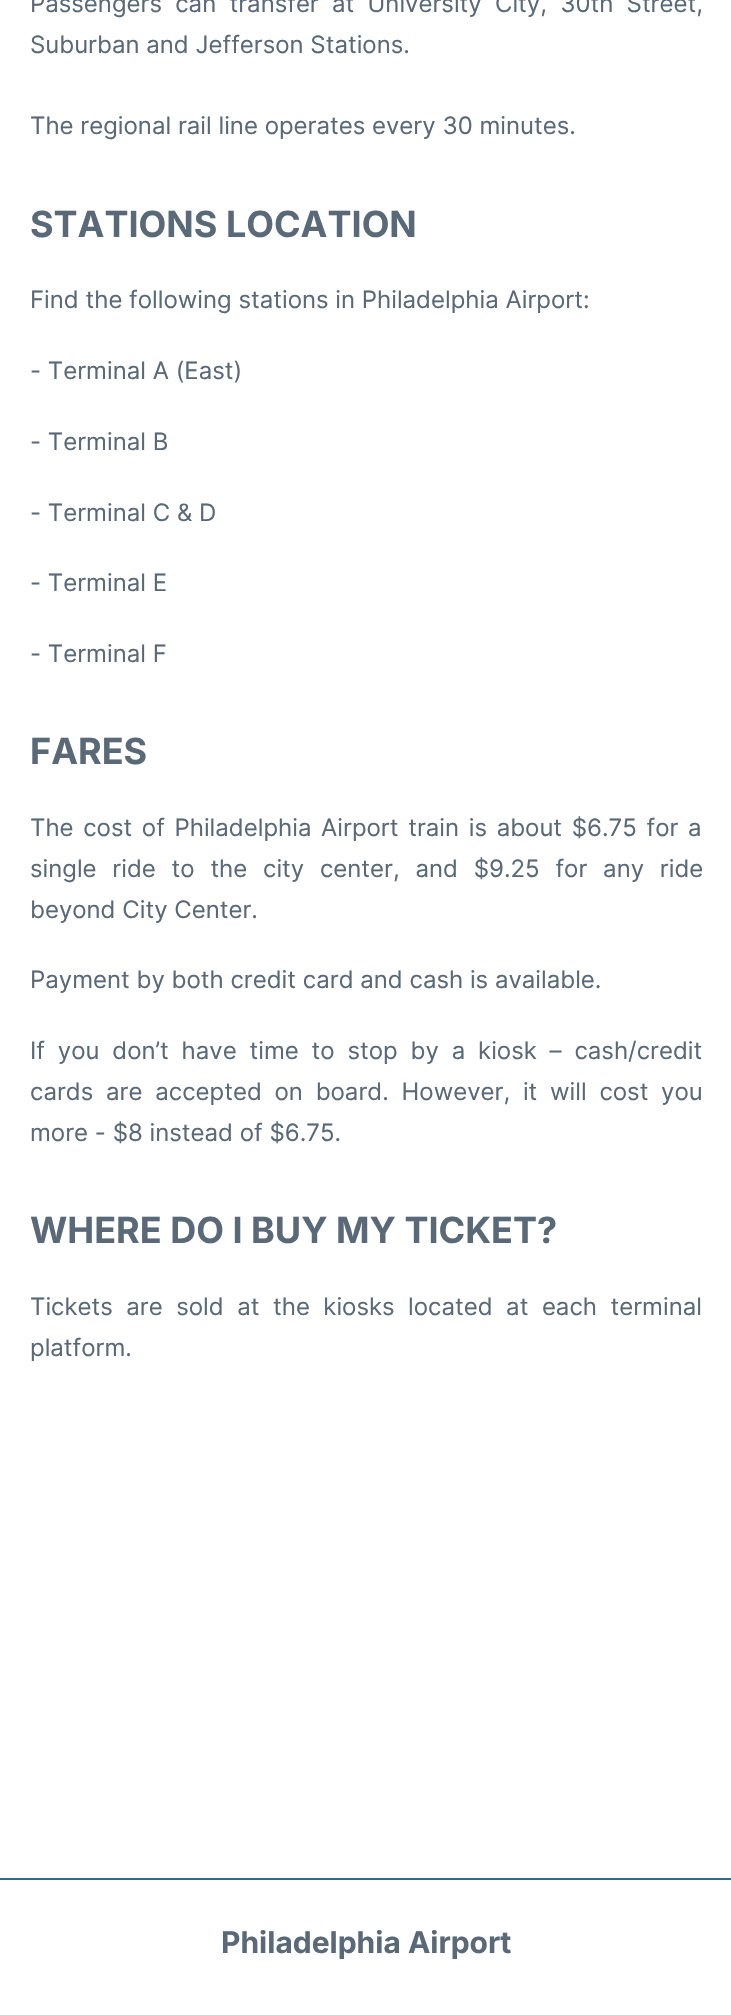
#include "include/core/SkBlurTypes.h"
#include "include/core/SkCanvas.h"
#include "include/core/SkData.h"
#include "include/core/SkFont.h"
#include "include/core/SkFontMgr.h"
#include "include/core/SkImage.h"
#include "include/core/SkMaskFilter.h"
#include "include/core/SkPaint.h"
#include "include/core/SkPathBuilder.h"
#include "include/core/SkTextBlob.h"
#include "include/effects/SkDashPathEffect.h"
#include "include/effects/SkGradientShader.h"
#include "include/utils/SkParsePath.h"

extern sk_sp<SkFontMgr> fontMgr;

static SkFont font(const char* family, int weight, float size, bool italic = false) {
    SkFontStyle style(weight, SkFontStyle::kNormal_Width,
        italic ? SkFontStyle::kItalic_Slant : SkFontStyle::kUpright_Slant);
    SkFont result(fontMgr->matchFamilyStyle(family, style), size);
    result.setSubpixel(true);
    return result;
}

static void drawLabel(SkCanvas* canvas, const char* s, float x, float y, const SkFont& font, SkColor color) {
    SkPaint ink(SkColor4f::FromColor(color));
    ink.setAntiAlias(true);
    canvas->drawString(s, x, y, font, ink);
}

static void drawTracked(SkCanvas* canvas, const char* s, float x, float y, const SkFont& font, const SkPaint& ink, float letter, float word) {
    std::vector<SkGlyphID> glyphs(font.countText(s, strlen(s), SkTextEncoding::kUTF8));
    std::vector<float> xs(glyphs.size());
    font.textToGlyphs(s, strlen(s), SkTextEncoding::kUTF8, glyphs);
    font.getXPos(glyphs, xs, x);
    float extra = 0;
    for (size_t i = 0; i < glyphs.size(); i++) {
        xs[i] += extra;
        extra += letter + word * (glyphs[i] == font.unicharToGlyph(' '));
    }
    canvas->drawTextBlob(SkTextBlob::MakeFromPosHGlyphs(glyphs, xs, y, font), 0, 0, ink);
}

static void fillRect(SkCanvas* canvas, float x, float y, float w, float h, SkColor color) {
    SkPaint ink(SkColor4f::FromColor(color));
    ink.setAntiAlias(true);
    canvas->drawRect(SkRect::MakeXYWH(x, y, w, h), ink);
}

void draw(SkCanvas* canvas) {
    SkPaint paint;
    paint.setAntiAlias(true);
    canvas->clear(0xFFFFFFFF);
    SkFont font1 = font("Inter", 400, 24);
    paint.setColor(0xFF5A6978);
    drawTracked(canvas, "Passengers can transfer at University City, 30th Street,", 30, 12, font1, paint, 0, 6.5f);
    drawLabel(canvas, "Suburban and Jefferson Stations.", 30, 53, font1, 0xFF5A6978);
    drawLabel(canvas, "The regional rail line operates every 30 minutes.", 30, 134, font1, 0xFF5A6978);
    SkFont font2 = font("Inter", 700, 36);
    drawLabel(canvas, "STATIONS LOCATION", 30, 237, font2, 0xFF5A6978);
    drawLabel(canvas, "Find the following stations in Philadelphia Airport:", 30, 308, font1, 0xFF5A6978);
    drawLabel(canvas, "- Terminal A (East)", 30, 379, font1, 0xFF5A6978);
    drawLabel(canvas, "- Terminal B", 30, 450, font1, 0xFF5A6978);
    drawLabel(canvas, "- Terminal C & D", 30, 521, font1, 0xFF5A6978);
    drawLabel(canvas, "- Terminal E", 30, 591, font1, 0xFF5A6978);
    drawLabel(canvas, "- Terminal F", 30, 662, font1, 0xFF5A6978);
    drawLabel(canvas, "FARES", 30, 764, font2, 0xFF5A6978);
    drawTracked(canvas, "The cost of Philadelphia Airport train is about $6.75 for a", 30, 836, font1, paint, 0, 2.9f);
    drawTracked(canvas, "single ride to the city center, and $9.25 for any ride", 30, 877, font1, paint, 0, 9);
    drawLabel(canvas, "beyond City Center.", 30, 918, font1, 0xFF5A6978);
    drawLabel(canvas, "Payment by both credit card and cash is available.", 30, 988, font1, 0xFF5A6978);
    drawTracked(canvas, "If you don’t have time to stop by a kiosk – cash/credit", 30, 1059, font1, paint, 0, 6.1f);
    drawTracked(canvas, "cards are accepted on board. However, it will cost you", 30, 1100, font1, paint, 0, 6);
    drawLabel(canvas, "more - $8 instead of $6.75.", 30, 1141, font1, 0xFF5A6978);
    drawLabel(canvas, "WHERE DO I BUY MY TICKET?", 30, 1243, font2, 0xFF5A6978);
    drawTracked(canvas, "Tickets are sold at the kiosks located at each terminal", 30, 1315, font1, paint, 0, 6.75f);
    drawLabel(canvas, "platform.", 30, 1356, font1, 0xFF5A6978);
    fillRect(canvas, 0, 1878, 731, 2, 0xFF2C6E93);
    SkFont font3 = font("Inter", 700, 30);
    drawLabel(canvas, "Philadelphia Airport", 221, 1953, font3, 0xFF5A6978);
}
